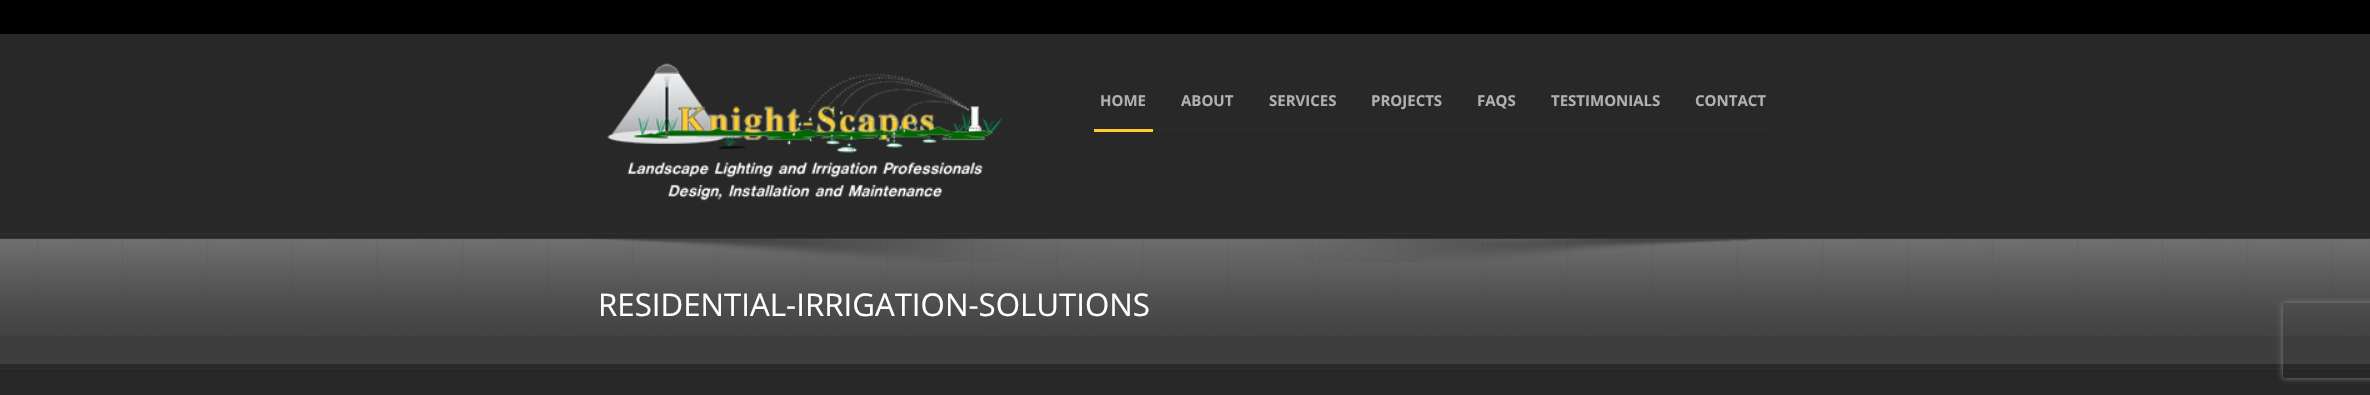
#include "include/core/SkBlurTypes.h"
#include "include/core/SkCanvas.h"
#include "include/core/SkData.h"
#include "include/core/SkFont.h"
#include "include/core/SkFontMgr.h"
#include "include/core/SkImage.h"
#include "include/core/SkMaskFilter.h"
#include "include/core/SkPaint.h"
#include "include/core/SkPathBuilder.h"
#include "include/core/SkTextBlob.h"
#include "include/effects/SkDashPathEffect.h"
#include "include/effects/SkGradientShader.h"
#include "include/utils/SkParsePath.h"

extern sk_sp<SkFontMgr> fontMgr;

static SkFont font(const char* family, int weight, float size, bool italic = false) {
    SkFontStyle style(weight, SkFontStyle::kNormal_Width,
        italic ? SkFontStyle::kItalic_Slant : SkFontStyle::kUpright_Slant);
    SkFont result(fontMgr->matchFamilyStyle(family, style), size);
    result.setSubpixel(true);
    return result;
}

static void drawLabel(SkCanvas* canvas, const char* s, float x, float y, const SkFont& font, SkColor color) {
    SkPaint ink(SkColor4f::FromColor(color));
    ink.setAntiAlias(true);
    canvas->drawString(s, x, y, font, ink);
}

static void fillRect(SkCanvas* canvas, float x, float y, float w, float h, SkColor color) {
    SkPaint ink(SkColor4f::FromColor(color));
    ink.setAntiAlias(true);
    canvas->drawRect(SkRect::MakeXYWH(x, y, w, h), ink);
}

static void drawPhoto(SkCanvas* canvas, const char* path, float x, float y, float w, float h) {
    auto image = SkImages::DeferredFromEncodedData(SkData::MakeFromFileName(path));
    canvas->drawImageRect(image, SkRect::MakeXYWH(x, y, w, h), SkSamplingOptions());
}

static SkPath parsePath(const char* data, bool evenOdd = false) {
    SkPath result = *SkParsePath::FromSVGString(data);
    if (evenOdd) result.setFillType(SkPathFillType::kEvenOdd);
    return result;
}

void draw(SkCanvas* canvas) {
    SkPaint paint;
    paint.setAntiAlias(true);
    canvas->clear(0xFF282828);
    fillRect(canvas, 0, 0, 2370, 34, 0xFF000000);
    drawPhoto(canvas, "assets/img1.png", 607, 63, 396, 138);
    fillRect(canvas, 1153, 129, 620, 1, 0xFF2E2E2E);
    SkFont font1 = font("Open Sans", 700, 15);
    drawLabel(canvas, "HOME", 1100, 106, font1, 0xFFB0B0B0);
    drawLabel(canvas, "ABOUT", 1181, 106, font1, 0xFFB0B0B0);
    drawLabel(canvas, "SERVICES", 1269, 106, font1, 0xFFB0B0B0);
    drawLabel(canvas, "PROJECTS", 1371, 106, font1, 0xFFB0B0B0);
    drawLabel(canvas, "FAQS", 1477, 106, font1, 0xFFB0B0B0);
    drawLabel(canvas, "TESTIMONIALS", 1551, 106, font1, 0xFFB0B0B0);
    drawLabel(canvas, "CONTACT", 1695, 106, font1, 0xFFB0B0B0);
    fillRect(canvas, 1094, 129, 59, 3, 0xFFFFCC33);
    fillRect(canvas, 0, 233, 2370, 1, 0xFF2E2E2E);
    fillRect(canvas, 0, 368, 2370, 1, 0xFF2E2E2E);
    fillRect(canvas, 0, 239, 2370, 125, 0xFF3F3E3E);
    drawPhoto(canvas, "assets/img2.png", 0, 238, 2370, 98);
    drawPhoto(canvas, "assets/img3.png", 596, 239, 1182, 24);
    SkFont font2 = font("Open Sans", 400, 31.25f);
    drawLabel(canvas, "RESIDENTIAL-IRRIGATION-SOLUTIONS", 598, 316, font2, 0xFFFFFFFF);
    canvas->save();
    canvas->clipPath(parsePath("M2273 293H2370V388H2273ZM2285.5 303H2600.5C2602 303 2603 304 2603 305.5V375.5C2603 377 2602 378 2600.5 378H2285.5C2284 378 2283 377 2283 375.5V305.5C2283 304 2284 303 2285.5 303Z", true), true);
    paint.setColor(0xFF808080);
    paint.setMaskFilter(SkMaskFilter::MakeBlur(kNormal_SkBlurStyle, 3));
    canvas->drawRoundRect(SkRect::MakeXYWH(2283, 303, 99, 75), 2.5f, 2.5f, paint);
    paint.setMaskFilter(nullptr);
    canvas->restore();
}
